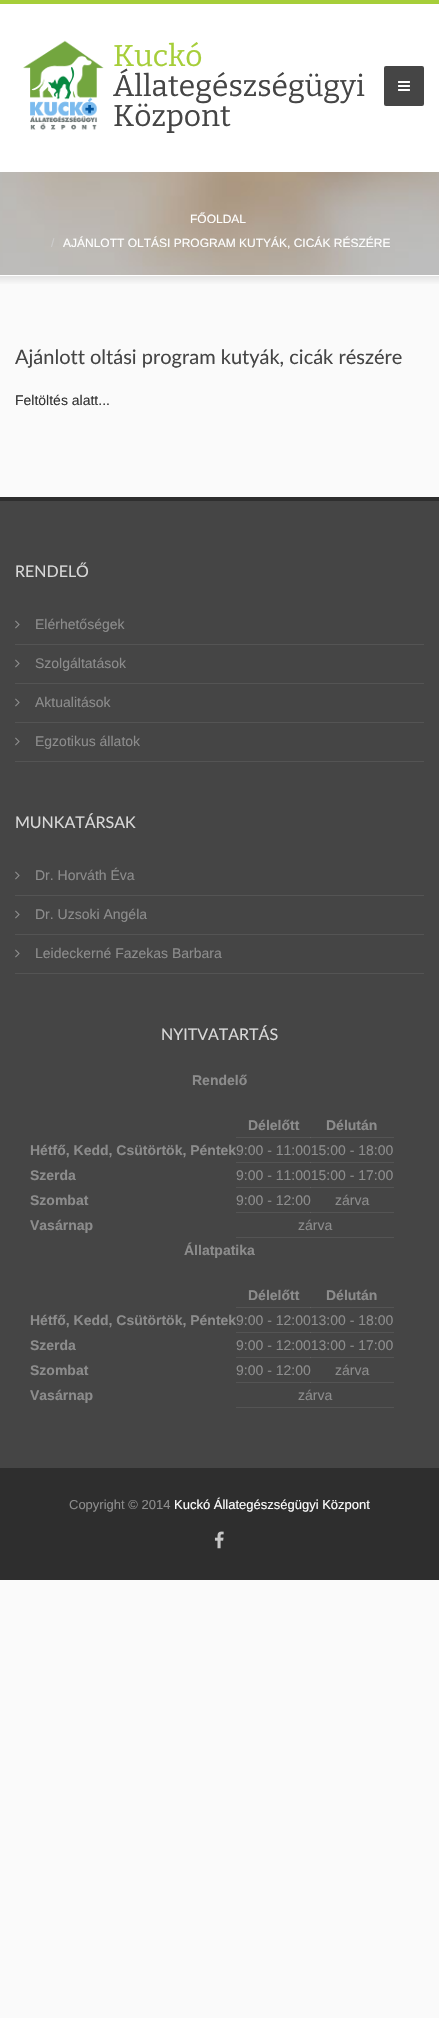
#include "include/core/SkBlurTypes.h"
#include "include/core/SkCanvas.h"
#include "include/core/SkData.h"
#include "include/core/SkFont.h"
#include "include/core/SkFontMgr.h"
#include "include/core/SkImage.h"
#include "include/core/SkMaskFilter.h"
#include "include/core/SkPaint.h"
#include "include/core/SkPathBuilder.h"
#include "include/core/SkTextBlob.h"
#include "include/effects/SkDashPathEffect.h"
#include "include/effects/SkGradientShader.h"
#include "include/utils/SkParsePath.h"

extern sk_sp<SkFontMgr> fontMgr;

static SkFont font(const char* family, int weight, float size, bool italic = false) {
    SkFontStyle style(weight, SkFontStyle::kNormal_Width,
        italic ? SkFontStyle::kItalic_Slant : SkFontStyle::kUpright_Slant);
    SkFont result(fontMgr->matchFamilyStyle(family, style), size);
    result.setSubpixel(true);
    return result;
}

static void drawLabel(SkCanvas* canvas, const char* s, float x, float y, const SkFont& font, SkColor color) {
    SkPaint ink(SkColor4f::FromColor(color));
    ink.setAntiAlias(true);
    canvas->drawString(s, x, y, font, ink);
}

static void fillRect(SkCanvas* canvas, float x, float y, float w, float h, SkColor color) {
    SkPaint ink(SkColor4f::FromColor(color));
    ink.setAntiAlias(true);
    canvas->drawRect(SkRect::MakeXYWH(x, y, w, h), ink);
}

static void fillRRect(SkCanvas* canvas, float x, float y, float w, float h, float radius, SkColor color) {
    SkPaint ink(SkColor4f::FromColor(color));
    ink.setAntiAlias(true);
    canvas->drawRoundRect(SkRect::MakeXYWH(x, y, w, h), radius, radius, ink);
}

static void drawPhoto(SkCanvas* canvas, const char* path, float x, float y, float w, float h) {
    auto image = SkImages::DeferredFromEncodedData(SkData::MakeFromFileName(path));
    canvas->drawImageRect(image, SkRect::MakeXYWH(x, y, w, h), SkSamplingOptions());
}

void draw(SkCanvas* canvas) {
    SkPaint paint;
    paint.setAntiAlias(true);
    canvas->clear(0xFFFAFAFA);
    fillRect(canvas, 0, 4, 439, 168, 0xFFFFFFFF);
    fillRect(canvas, 0, 0, 439, 4, 0xFFA6CE39);
    drawPhoto(canvas, "assets/img1.png", 23, 40, 81, 90);
    SkFont font1 = font("Bitter", 400, 30);
    drawLabel(canvas, "Kuckó", 113, 66, font1, 0xFFA6CE39);
    drawLabel(canvas, "Állategészségügyi", 113, 96, font1, 0xFF454545);
    drawLabel(canvas, "Központ", 113, 126, font1, 0xFF454545);
    fillRRect(canvas, 384, 66, 40, 40, 2, 0xFF454545);
    drawPhoto(canvas, "assets/img2.png", 398, 81, 12, 10);
    drawPhoto(canvas, "assets/img3.png", 0, 172, 439, 103);
    SkFont font2 = font("Liberation Sans", 400, 12);
    drawLabel(canvas, "FŐOLDAL", 190, 223, font2, 0xFFFFFFFF);
    drawLabel(canvas, "/", 51, 247, font2, 0xFFCCCCCC);
    drawLabel(canvas, "AJÁNLOTT OLTÁSI PROGRAM KUTYÁK, CICÁK RÉSZÉRE", 63, 247, font2, 0xFFFFFFFF);
    fillRect(canvas, 0, 275, 439, 1, 0xFFFFFFFF);
    {
        const SkColor colors[] = {0xFFE1E1E1, 0xFFFAFAFA};
        const float stops[] = {0, 1};
        const SkPoint ends[] = {{220, 275}, {220, 285}};
        paint.setShader(SkGradientShader::MakeLinear(ends, colors, stops, 2, SkTileMode::kClamp));
        paint.setAlpha(255);
    }
    canvas->drawRect(SkRect::MakeXYWH(0, 276, 439, 8), paint);
    SkFont font3 = font("Lato", 400, 20);
    drawLabel(canvas, "Ajánlott oltási program kutyák, cicák részére", 15, 364, font3, 0xFF454545);
    SkFont font4 = font("Liberation Sans", 400, 14);
    drawLabel(canvas, "Feltöltés alatt...", 15, 405, font4, 0xFF333333);
    fillRect(canvas, 0, 501, 439, 967, 0xFF454545);
    fillRect(canvas, 236, 1307, 158, 1, 0xFF545454);
    fillRect(canvas, 236, 1332, 158, 1, 0xFF545454);
    fillRect(canvas, 236, 1357, 158, 1, 0xFF545454);
    fillRect(canvas, 236, 1382, 158, 1, 0xFF545454);
    fillRect(canvas, 236, 1137, 158, 1, 0xFF545454);
    fillRect(canvas, 236, 1162, 158, 1, 0xFF545454);
    fillRect(canvas, 236, 1187, 158, 1, 0xFF545454);
    fillRect(canvas, 236, 1212, 158, 1, 0xFF545454);
    fillRect(canvas, 0, 497, 439, 4, 0xFF2E2E2E);
    SkFont font5 = font("Lato", 400, 16);
    drawLabel(canvas, "RENDELŐ", 15, 577, font5, 0xFFD8D8D8);
    fillRect(canvas, 15, 644, 409, 1, 0xFF545454);
    drawPhoto(canvas, "assets/img4.png", 15, 620, 5, 9);
    drawLabel(canvas, "Elérhetőségek", 35, 629, font4, 0xFF8C8C8C);
    fillRect(canvas, 15, 683, 409, 1, 0xFF545454);
    drawPhoto(canvas, "assets/img4.png", 15, 659, 5, 9);
    drawLabel(canvas, "Szolgáltatások", 35, 668, font4, 0xFF8C8C8C);
    fillRect(canvas, 15, 722, 409, 1, 0xFF545454);
    drawPhoto(canvas, "assets/img4.png", 15, 698, 5, 9);
    drawLabel(canvas, "Aktualitások", 35, 707, font4, 0xFF8C8C8C);
    fillRect(canvas, 15, 761, 409, 1, 0xFF545454);
    drawPhoto(canvas, "assets/img4.png", 15, 737, 5, 9);
    drawLabel(canvas, "Egzotikus állatok", 35, 746, font4, 0xFF8C8C8C);
    drawLabel(canvas, "MUNKATÁRSAK", 15, 828, font5, 0xFFD8D8D8);
    fillRect(canvas, 15, 895, 409, 1, 0xFF545454);
    drawPhoto(canvas, "assets/img4.png", 15, 871, 5, 9);
    drawLabel(canvas, "Dr. Horváth Éva", 35, 880, font4, 0xFF8C8C8C);
    fillRect(canvas, 15, 934, 409, 1, 0xFF545454);
    drawPhoto(canvas, "assets/img4.png", 15, 910, 5, 9);
    drawLabel(canvas, "Dr. Uzsoki Angéla", 35, 919, font4, 0xFF8C8C8C);
    fillRect(canvas, 15, 973, 409, 1, 0xFF545454);
    drawPhoto(canvas, "assets/img4.png", 15, 949, 5, 9);
    drawLabel(canvas, "Leideckerné Fazekas Barbara", 35, 958, font4, 0xFF8C8C8C);
    drawLabel(canvas, "NYITVATARTÁS", 161, 1040, font5, 0xFFD8D8D8);
    SkFont font6 = font("Liberation Sans", 700, 14);
    drawLabel(canvas, "Rendelő", 192, 1085, font6, 0xFF8C8C8C);
    drawLabel(canvas, "Délelőtt", 248, 1130, font6, 0xFF8C8C8C);
    fillRect(canvas, 310, 1137, 1, 1, 0xFF626262);
    drawLabel(canvas, "Délután", 326, 1130, font6, 0xFF8C8C8C);
    drawLabel(canvas, "Hétfő, Kedd, Csütörtök, Péntek", 30, 1155, font6, 0xFF8C8C8C);
    drawLabel(canvas, "9:00 - 11:0015:00 - 18:00", 236, 1155, font4, 0xFF8C8C8C);
    fillRect(canvas, 310, 1162, 1, 1, 0xFF626262);
    drawLabel(canvas, "Szerda", 30, 1180, font6, 0xFF8C8C8C);
    drawLabel(canvas, "9:00 - 11:0015:00 - 17:00", 236, 1180, font4, 0xFF8C8C8C);
    fillRect(canvas, 310, 1187, 1, 1, 0xFF626262);
    drawLabel(canvas, "Szombat", 30, 1205, font6, 0xFF8C8C8C);
    drawLabel(canvas, "9:00 - 12:00", 236, 1205, font4, 0xFF8C8C8C);
    fillRect(canvas, 310, 1212, 1, 1, 0xFF626262);
    drawLabel(canvas, "zárva", 335, 1205, font4, 0xFF8C8C8C);
    drawLabel(canvas, "Vasárnap", 30, 1230, font6, 0xFF8C8C8C);
    fillRect(canvas, 236, 1237, 158, 1, 0xFF545454);
    drawLabel(canvas, "zárva", 298, 1230, font4, 0xFF8C8C8C);
    drawLabel(canvas, "Állatpatika", 184, 1255, font6, 0xFF8C8C8C);
    drawLabel(canvas, "Délelőtt", 248, 1300, font6, 0xFF8C8C8C);
    fillRect(canvas, 310, 1307, 1, 1, 0xFF626262);
    drawLabel(canvas, "Délután", 326, 1300, font6, 0xFF8C8C8C);
    drawLabel(canvas, "Hétfő, Kedd, Csütörtök, Péntek", 30, 1325, font6, 0xFF8C8C8C);
    drawLabel(canvas, "9:00 - 12:0013:00 - 18:00", 236, 1325, font4, 0xFF8C8C8C);
    fillRect(canvas, 310, 1332, 1, 1, 0xFF626262);
    drawLabel(canvas, "Szerda", 30, 1350, font6, 0xFF8C8C8C);
    drawLabel(canvas, "9:00 - 12:0013:00 - 17:00", 236, 1350, font4, 0xFF8C8C8C);
    fillRect(canvas, 310, 1357, 1, 1, 0xFF626262);
    drawLabel(canvas, "Szombat", 30, 1375, font6, 0xFF8C8C8C);
    drawLabel(canvas, "9:00 - 12:00", 236, 1375, font4, 0xFF8C8C8C);
    fillRect(canvas, 310, 1382, 1, 1, 0xFF626262);
    drawLabel(canvas, "zárva", 335, 1375, font4, 0xFF8C8C8C);
    drawLabel(canvas, "Vasárnap", 30, 1400, font6, 0xFF8C8C8C);
    fillRect(canvas, 236, 1407, 158, 1, 0xFF545454);
    drawLabel(canvas, "zárva", 298, 1400, font4, 0xFF8C8C8C);
    fillRect(canvas, 0, 1468, 439, 112, 0xFF2E2E2E);
    SkFont font7 = font("Liberation Sans", 400, 13);
    drawLabel(canvas, "Copyright © 2014", 69, 1509, font7, 0xFF8C8C8C);
    drawLabel(canvas, "Kuckó Állategészségügyi Központ", 174, 1509, font7, 0xFFFFFFFF);
    drawPhoto(canvas, "assets/img5.png", 214, 1531, 10, 18);
}
